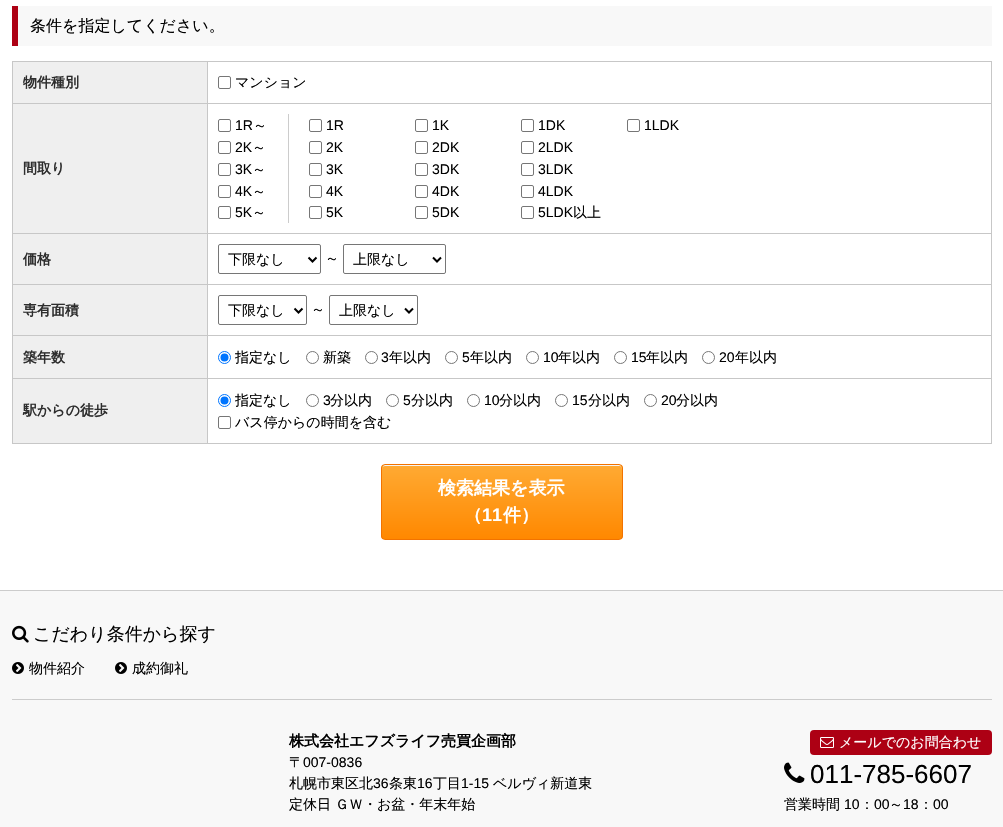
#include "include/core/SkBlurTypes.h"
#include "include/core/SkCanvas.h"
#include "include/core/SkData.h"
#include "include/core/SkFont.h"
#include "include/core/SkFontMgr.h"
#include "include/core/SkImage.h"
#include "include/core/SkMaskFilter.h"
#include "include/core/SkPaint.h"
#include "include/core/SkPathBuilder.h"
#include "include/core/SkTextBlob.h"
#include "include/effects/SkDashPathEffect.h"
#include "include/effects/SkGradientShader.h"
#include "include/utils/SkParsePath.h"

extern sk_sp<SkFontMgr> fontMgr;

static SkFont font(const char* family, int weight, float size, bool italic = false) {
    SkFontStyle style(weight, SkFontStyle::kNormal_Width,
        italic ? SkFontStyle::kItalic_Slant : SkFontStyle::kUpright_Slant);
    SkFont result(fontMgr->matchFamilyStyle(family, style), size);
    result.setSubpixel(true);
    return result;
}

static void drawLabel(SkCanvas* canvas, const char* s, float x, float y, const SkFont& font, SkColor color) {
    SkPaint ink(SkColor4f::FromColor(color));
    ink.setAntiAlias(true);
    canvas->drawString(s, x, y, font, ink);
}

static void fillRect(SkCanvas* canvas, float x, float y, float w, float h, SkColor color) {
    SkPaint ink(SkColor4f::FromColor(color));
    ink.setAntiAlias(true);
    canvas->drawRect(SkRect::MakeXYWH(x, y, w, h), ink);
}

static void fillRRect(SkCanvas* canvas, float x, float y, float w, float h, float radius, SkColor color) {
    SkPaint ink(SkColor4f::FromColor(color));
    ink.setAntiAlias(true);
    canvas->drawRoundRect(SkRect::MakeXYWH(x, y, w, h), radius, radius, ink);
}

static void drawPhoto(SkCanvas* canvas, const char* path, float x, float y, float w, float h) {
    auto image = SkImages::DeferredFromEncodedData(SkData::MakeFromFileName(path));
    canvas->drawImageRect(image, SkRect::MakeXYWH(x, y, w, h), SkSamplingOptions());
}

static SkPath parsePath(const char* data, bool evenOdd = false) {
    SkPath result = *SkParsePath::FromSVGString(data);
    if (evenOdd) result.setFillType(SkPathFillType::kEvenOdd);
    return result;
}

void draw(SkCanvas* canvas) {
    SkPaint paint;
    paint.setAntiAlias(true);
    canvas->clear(0xFFFFFFFF);
    fillRect(canvas, 18, 6, 974, 40, 0xFFF8F8F8);
    fillRect(canvas, 12, 6, 6, 40, 0xFFAD0014);
    SkFont font1 = font("WenQuanYi Zen Hei", 500, 16);
    drawLabel(canvas, "条件を指定してください。", 30, 31, font1, 0xFF000000);
    fillRect(canvas, 13, 62, 194, 41, 0xFFEFEFEF);
    fillRect(canvas, 207, 61, 785, 1, 0xFFC7C7C7);
    fillRect(canvas, 207, 103, 785, 1, 0xFFC7C7C7);
    fillRect(canvas, 207, 233, 785, 1, 0xFFC7C7C7);
    fillRect(canvas, 207, 284, 785, 1, 0xFFC7C7C7);
    fillRect(canvas, 207, 335, 785, 1, 0xFFC7C7C7);
    fillRect(canvas, 207, 378, 785, 1, 0xFFC7C7C7);
    fillRect(canvas, 991, 378, 1, 66, 0xFFC7C7C7);
    fillRect(canvas, 207, 443, 785, 1, 0xFFC7C7C7);
    fillRect(canvas, 207, 378, 1, 66, 0xFFC7C7C7);
    fillRect(canvas, 12, 378, 196, 1, 0xFFC7C7C7);
    fillRect(canvas, 207, 335, 1, 44, 0xFFC7C7C7);
    fillRect(canvas, 12, 335, 196, 1, 0xFFC7C7C7);
    fillRect(canvas, 207, 284, 1, 52, 0xFFC7C7C7);
    fillRect(canvas, 12, 284, 196, 1, 0xFFC7C7C7);
    fillRect(canvas, 207, 233, 1, 52, 0xFFC7C7C7);
    fillRect(canvas, 12, 233, 196, 1, 0xFFC7C7C7);
    fillRect(canvas, 207, 103, 1, 131, 0xFFC7C7C7);
    fillRect(canvas, 12, 103, 196, 1, 0xFFC7C7C7);
    fillRect(canvas, 207, 61, 1, 43, 0xFFC7C7C7);
    fillRect(canvas, 12, 61, 196, 1, 0xFFC7C7C7);
    fillRect(canvas, 12, 443, 196, 1, 0xFFC7C7C7);
    fillRect(canvas, 12, 378, 1, 66, 0xFFC7C7C7);
    fillRect(canvas, 12, 335, 1, 44, 0xFFC7C7C7);
    fillRect(canvas, 12, 284, 1, 52, 0xFFC7C7C7);
    fillRect(canvas, 12, 233, 1, 52, 0xFFC7C7C7);
    fillRect(canvas, 12, 103, 1, 131, 0xFFC7C7C7);
    fillRect(canvas, 12, 61, 1, 43, 0xFFC7C7C7);
    SkFont font2 = font("WenQuanYi Zen Hei", 700, 14);
    drawLabel(canvas, "物件種別", 23, 87, font2, 0xFF2D2D2D);
    fillRect(canvas, 991, 335, 1, 44, 0xFFC7C7C7);
    fillRect(canvas, 991, 284, 1, 52, 0xFFC7C7C7);
    fillRect(canvas, 991, 233, 1, 52, 0xFFC7C7C7);
    fillRect(canvas, 991, 103, 1, 131, 0xFFC7C7C7);
    fillRect(canvas, 991, 61, 1, 43, 0xFFC7C7C7);
    paint.setStroke(true);
    paint.setStrokeWidth(1);
    paint.setColor(0xFF767676);
    canvas->drawRoundRect(SkRect::MakeXYWH(218.5f, 76.5f, 12, 12), 1.5f, 1.5f, paint);
    SkFont font3 = font("WenQuanYi Zen Hei", 500, 14);
    drawLabel(canvas, "マンション", 235, 87, font3, 0xFF000000);
    fillRect(canvas, 13, 104, 194, 129, 0xFFEFEFEF);
    drawLabel(canvas, "間取り", 23, 173, font2, 0xFF2D2D2D);
    fillRect(canvas, 288, 114, 1, 109, 0xFFCCCCCC);
    canvas->drawRoundRect(SkRect::MakeXYWH(218.5f, 119.5f, 12, 12), 1.5f, 1.5f, paint);
    SkFont font4 = font("Liberation Sans", 400, 14);
    drawLabel(canvas, "1R", 235, 130, font4, 0xFF000000);
    drawLabel(canvas, "～", 253, 130, font3, 0xFF000000);
    canvas->drawRoundRect(SkRect::MakeXYWH(218.5f, 141.5f, 12, 12), 1.5f, 1.5f, paint);
    drawLabel(canvas, "2K", 235, 152, font4, 0xFF000000);
    drawLabel(canvas, "～", 252, 152, font3, 0xFF000000);
    canvas->drawRoundRect(SkRect::MakeXYWH(218.5f, 163.5f, 12, 12), 1.5f, 1.5f, paint);
    drawLabel(canvas, "3K", 235, 174, font4, 0xFF000000);
    drawLabel(canvas, "～", 252, 174, font3, 0xFF000000);
    canvas->drawRoundRect(SkRect::MakeXYWH(218.5f, 185.5f, 12, 12), 1.5f, 1.5f, paint);
    drawLabel(canvas, "4K", 235, 196, font4, 0xFF000000);
    drawLabel(canvas, "～", 252, 196, font3, 0xFF000000);
    canvas->drawRoundRect(SkRect::MakeXYWH(218.5f, 206.5f, 12, 12), 1.5f, 1.5f, paint);
    drawLabel(canvas, "5K", 235, 217, font4, 0xFF000000);
    drawLabel(canvas, "～", 252, 217, font3, 0xFF000000);
    canvas->drawRoundRect(SkRect::MakeXYWH(309.5f, 119.5f, 12, 12), 1.5f, 1.5f, paint);
    drawLabel(canvas, "1R", 326, 130, font4, 0xFF000000);
    canvas->drawRoundRect(SkRect::MakeXYWH(415.5f, 119.5f, 12, 12), 1.5f, 1.5f, paint);
    drawLabel(canvas, "1K", 432, 130, font4, 0xFF000000);
    canvas->drawRoundRect(SkRect::MakeXYWH(521.5f, 119.5f, 12, 12), 1.5f, 1.5f, paint);
    drawLabel(canvas, "1DK", 538, 130, font4, 0xFF000000);
    canvas->drawRoundRect(SkRect::MakeXYWH(627.5f, 119.5f, 12, 12), 1.5f, 1.5f, paint);
    drawLabel(canvas, "1LDK", 644, 130, font4, 0xFF000000);
    canvas->drawRoundRect(SkRect::MakeXYWH(309.5f, 141.5f, 12, 12), 1.5f, 1.5f, paint);
    drawLabel(canvas, "2K", 326, 152, font4, 0xFF000000);
    canvas->drawRoundRect(SkRect::MakeXYWH(415.5f, 141.5f, 12, 12), 1.5f, 1.5f, paint);
    drawLabel(canvas, "2DK", 432, 152, font4, 0xFF000000);
    canvas->drawRoundRect(SkRect::MakeXYWH(521.5f, 141.5f, 12, 12), 1.5f, 1.5f, paint);
    drawLabel(canvas, "2LDK", 538, 152, font4, 0xFF000000);
    canvas->drawRoundRect(SkRect::MakeXYWH(309.5f, 163.5f, 12, 12), 1.5f, 1.5f, paint);
    drawLabel(canvas, "3K", 326, 174, font4, 0xFF000000);
    canvas->drawRoundRect(SkRect::MakeXYWH(415.5f, 163.5f, 12, 12), 1.5f, 1.5f, paint);
    drawLabel(canvas, "3DK", 432, 174, font4, 0xFF000000);
    canvas->drawRoundRect(SkRect::MakeXYWH(521.5f, 163.5f, 12, 12), 1.5f, 1.5f, paint);
    drawLabel(canvas, "3LDK", 538, 174, font4, 0xFF000000);
    canvas->drawRoundRect(SkRect::MakeXYWH(309.5f, 185.5f, 12, 12), 1.5f, 1.5f, paint);
    drawLabel(canvas, "4K", 326, 196, font4, 0xFF000000);
    canvas->drawRoundRect(SkRect::MakeXYWH(415.5f, 185.5f, 12, 12), 1.5f, 1.5f, paint);
    drawLabel(canvas, "4DK", 432, 196, font4, 0xFF000000);
    canvas->drawRoundRect(SkRect::MakeXYWH(521.5f, 185.5f, 12, 12), 1.5f, 1.5f, paint);
    drawLabel(canvas, "4LDK", 538, 196, font4, 0xFF000000);
    canvas->drawRoundRect(SkRect::MakeXYWH(309.5f, 206.5f, 12, 12), 1.5f, 1.5f, paint);
    drawLabel(canvas, "5K", 326, 217, font4, 0xFF000000);
    canvas->drawRoundRect(SkRect::MakeXYWH(415.5f, 206.5f, 12, 12), 1.5f, 1.5f, paint);
    drawLabel(canvas, "5DK", 432, 217, font4, 0xFF000000);
    canvas->drawRoundRect(SkRect::MakeXYWH(521.5f, 206.5f, 12, 12), 1.5f, 1.5f, paint);
    drawLabel(canvas, "5LDK", 538, 217, font4, 0xFF000000);
    drawLabel(canvas, "以上", 573, 217, font3, 0xFF000000);
    fillRect(canvas, 13, 234, 194, 50, 0xFFEFEFEF);
    drawLabel(canvas, "価格", 23, 264, font2, 0xFF2D2D2D);
    canvas->drawRoundRect(SkRect::MakeXYWH(218.5f, 244.5f, 102, 29), 1.5f, 1.5f, paint);
    paint.setStrokeWidth(2);
    paint.setColor(0xFF000000);
    canvas->drawPath(parsePath("M308.5 257.5L312.5 261.5L316.5 257.5"), paint);
    drawLabel(canvas, "下限なし", 228, 264, font3, 0xFF000000);
    drawLabel(canvas, "～", 325, 263, font3, 0xFF000000);
    paint.setStrokeWidth(1);
    paint.setColor(0xFF767676);
    canvas->drawRoundRect(SkRect::MakeXYWH(343.5f, 244.5f, 102, 29), 1.5f, 1.5f, paint);
    paint.setStrokeWidth(2);
    paint.setColor(0xFF000000);
    canvas->drawPath(parsePath("M433 257.5L437 261.5L441 257.5"), paint);
    drawLabel(canvas, "上限なし", 353, 264, font3, 0xFF000000);
    fillRect(canvas, 13, 285, 194, 50, 0xFFEFEFEF);
    drawLabel(canvas, "専有面積", 23, 315, font2, 0xFF2D2D2D);
    paint.setStrokeWidth(1);
    paint.setColor(0xFF767676);
    canvas->drawRoundRect(SkRect::MakeXYWH(218.5f, 295.5f, 88, 29), 1.5f, 1.5f, paint);
    paint.setStrokeWidth(2);
    paint.setColor(0xFF000000);
    canvas->drawPath(parsePath("M294.5 308.5L298.5 312.5L302.5 308.5"), paint);
    drawLabel(canvas, "下限なし", 228, 315, font3, 0xFF000000);
    drawLabel(canvas, "～", 311, 314, font3, 0xFF000000);
    paint.setStrokeWidth(1);
    paint.setColor(0xFF767676);
    canvas->drawRoundRect(SkRect::MakeXYWH(329.5f, 295.5f, 88, 29), 1.5f, 1.5f, paint);
    paint.setStrokeWidth(2);
    paint.setColor(0xFF000000);
    canvas->drawPath(parsePath("M405 308.5L409 312.5L413 308.5"), paint);
    drawLabel(canvas, "上限なし", 339, 315, font3, 0xFF000000);
    fillRect(canvas, 13, 336, 194, 42, 0xFFEFEFEF);
    drawLabel(canvas, "築年数", 23, 362, font2, 0xFF2D2D2D);
    paint.setStrokeWidth(1);
    paint.setColor(0xFF0075FF);
    canvas->drawCircle(224.5f, 357.5f, 6, paint);
    paint.setStroke(false);
    canvas->drawCircle(224.5f, 357.5f, 4, paint);
    drawLabel(canvas, "指定なし", 235, 362, font3, 0xFF000000);
    paint.setStroke(true);
    paint.setColor(0xFF767676);
    canvas->drawCircle(312.5f, 357.5f, 6, paint);
    drawLabel(canvas, "新築", 323, 362, font3, 0xFF000000);
    canvas->drawCircle(371.5f, 357.5f, 6, paint);
    drawLabel(canvas, "3", 381, 362, font4, 0xFF000000);
    drawLabel(canvas, "年以内", 389, 362, font3, 0xFF000000);
    canvas->drawCircle(451.5f, 357.5f, 6, paint);
    drawLabel(canvas, "5", 462, 362, font4, 0xFF000000);
    drawLabel(canvas, "年以内", 470, 362, font3, 0xFF000000);
    canvas->drawCircle(532.5f, 357.5f, 6, paint);
    drawLabel(canvas, "10", 543, 362, font4, 0xFF000000);
    drawLabel(canvas, "年以内", 558, 362, font3, 0xFF000000);
    canvas->drawCircle(620.5f, 357.5f, 6, paint);
    drawLabel(canvas, "15", 631, 362, font4, 0xFF000000);
    drawLabel(canvas, "年以内", 646, 362, font3, 0xFF000000);
    canvas->drawCircle(708.5f, 357.5f, 6, paint);
    drawLabel(canvas, "20", 719, 362, font4, 0xFF000000);
    drawLabel(canvas, "年以内", 735, 362, font3, 0xFF000000);
    fillRect(canvas, 13, 379, 194, 64, 0xFFEFEFEF);
    drawLabel(canvas, "駅からの徒歩", 23, 415, font2, 0xFF2D2D2D);
    paint.setColor(0xFF0075FF);
    canvas->drawCircle(224.5f, 400.5f, 6, paint);
    paint.setStroke(false);
    canvas->drawCircle(224.5f, 400.5f, 4, paint);
    drawLabel(canvas, "指定なし", 235, 405, font3, 0xFF000000);
    paint.setStroke(true);
    paint.setColor(0xFF767676);
    canvas->drawCircle(312.5f, 400.5f, 6, paint);
    drawLabel(canvas, "3", 323, 405, font4, 0xFF000000);
    drawLabel(canvas, "分以内", 330, 405, font3, 0xFF000000);
    canvas->drawCircle(392.5f, 400.5f, 6, paint);
    drawLabel(canvas, "5", 403, 405, font4, 0xFF000000);
    drawLabel(canvas, "分以内", 411, 405, font3, 0xFF000000);
    canvas->drawCircle(473.5f, 400.5f, 6, paint);
    drawLabel(canvas, "10", 484, 405, font4, 0xFF000000);
    drawLabel(canvas, "分以内", 499, 405, font3, 0xFF000000);
    canvas->drawCircle(561.5f, 400.5f, 6, paint);
    drawLabel(canvas, "15", 572, 405, font4, 0xFF000000);
    drawLabel(canvas, "分以内", 588, 405, font3, 0xFF000000);
    canvas->drawCircle(650.5f, 400.5f, 6, paint);
    drawLabel(canvas, "20", 661, 405, font4, 0xFF000000);
    drawLabel(canvas, "分以内", 676, 405, font3, 0xFF000000);
    canvas->drawRoundRect(SkRect::MakeXYWH(218.5f, 416.5f, 12, 12), 1.5f, 1.5f, paint);
    drawLabel(canvas, "バス停からの時間を含む", 235, 427, font3, 0xFF000000);
    canvas->save();
    canvas->clipPath(parsePath("M385 464H619C621 464 623 466 623 468V536C623 538 621 540 619 540H385C383 540 381 538 381 536V468C381 466 383 464 385 464Z"), true);
    paint.setStroke(false);
    {
        const SkColor colors[] = {0xFFFFAA33, 0xFFFF8800};
        const float stops[] = {0, 1};
        const SkPoint ends[] = {{502, 465}, {502, 539}};
        paint.setShader(SkGradientShader::MakeLinear(ends, colors, stops, 2, SkTileMode::kClamp));
        paint.setAlpha(255);
    }
    canvas->drawRect(SkRect::MakeXYWH(381, 465, 242, 74), paint);
    canvas->restore();
    paint.setShader(nullptr);
    paint.setColor(0xFFF3F3F3);
    canvas->drawPath(parsePath("M385 466H620L622 467V469C622 467 621 465 619 465H385C383 465 382 467 382 469C382 467 383 466 385 466Z"), paint);
    paint.setStroke(true);
    paint.setColor(0xFFF27300);
    canvas->drawRoundRect(SkRect::MakeXYWH(381.5f, 464.5f, 241, 75), 3.5f, 3.5f, paint);
    SkFont font5 = font("WenQuanYi Zen Hei", 700, 18);
    drawLabel(canvas, "検索結果を表示", 438, 494, font5, 0xFFFFFFFF);
    drawLabel(canvas, "（", 464, 521, font5, 0xFFFFFFFF);
    SkFont font6 = font("Liberation Sans", 700, 18);
    drawLabel(canvas, "11", 482, 521, font6, 0xFFFFFFFF);
    drawLabel(canvas, "件）", 503, 521, font5, 0xFFFFFFFF);
    fillRect(canvas, 0, 591, 1003, 236, 0xFFF8F8F8);
    fillRect(canvas, 0, 590, 1003, 1, 0xFFCCCCCC);
    fillRect(canvas, 12, 699, 980, 1, 0xFFCCCCCC);
    drawPhoto(canvas, "assets/img1.png", 12, 625, 17, 18);
    SkFont font7 = font("WenQuanYi Zen Hei", 500, 18);
    drawLabel(canvas, "こだわり条件から探す", 33, 640, font7, 0xFF000000);
    drawPhoto(canvas, "assets/img2.png", 12, 662, 12, 12);
    drawLabel(canvas, "物件紹介", 29, 673, font3, 0xFF000000);
    drawPhoto(canvas, "assets/img2.png", 115, 662, 12, 12);
    drawLabel(canvas, "成約御礼", 132, 673, font3, 0xFF000000);
    SkFont font8 = font("WenQuanYi Zen Hei", 700, 15);
    drawLabel(canvas, "株式会社エフズライフ売買企画部", 289, 746, font8, 0xFF000000);
    drawLabel(canvas, "〒", 289, 767, font3, 0xFF000000);
    drawLabel(canvas, "007-0836", 303, 767, font4, 0xFF000000);
    drawLabel(canvas, "札幌市東区北", 289, 788, font3, 0xFF000000);
    drawLabel(canvas, "36", 373, 788, font4, 0xFF000000);
    drawLabel(canvas, "条東", 389, 788, font3, 0xFF000000);
    drawLabel(canvas, "16", 417, 788, font4, 0xFF000000);
    drawLabel(canvas, "丁目", 433, 788, font3, 0xFF000000);
    drawLabel(canvas, "1-15", 461, 788, font4, 0xFF000000);
    drawLabel(canvas, "ベルヴィ新道東", 493, 788, font3, 0xFF000000);
    drawLabel(canvas, "定休日", 289, 809, font3, 0xFF000000);
    drawLabel(canvas, "ＧＷ・お盆・年末年始", 335, 809, font3, 0xFF000000);
    fillRRect(canvas, 810, 730, 182, 25, 4, 0xFFAD0014);
    drawPhoto(canvas, "assets/img3.png", 820, 737, 14, 11);
    drawLabel(canvas, "メールでのお問合わせ", 839, 747, font3, 0xFFFFFFFF);
    drawPhoto(canvas, "assets/img4.png", 784, 762, 21, 21);
    SkFont font9 = font("Liberation Sans", 400, 26);
    drawLabel(canvas, "011-785-6607", 810, 783, font9, 0xFF000000);
    drawLabel(canvas, "営業時間", 784, 809, font3, 0xFF000000);
    drawLabel(canvas, "10", 844, 809, font4, 0xFF000000);
    drawLabel(canvas, "：", 860, 809, font3, 0xFF000000);
    drawLabel(canvas, "00", 874, 809, font4, 0xFF000000);
    drawLabel(canvas, "～", 889, 809, font3, 0xFF000000);
    drawLabel(canvas, "18", 903, 809, font4, 0xFF000000);
    drawLabel(canvas, "：", 919, 809, font3, 0xFF000000);
    drawLabel(canvas, "00", 933, 809, font4, 0xFF000000);
}
